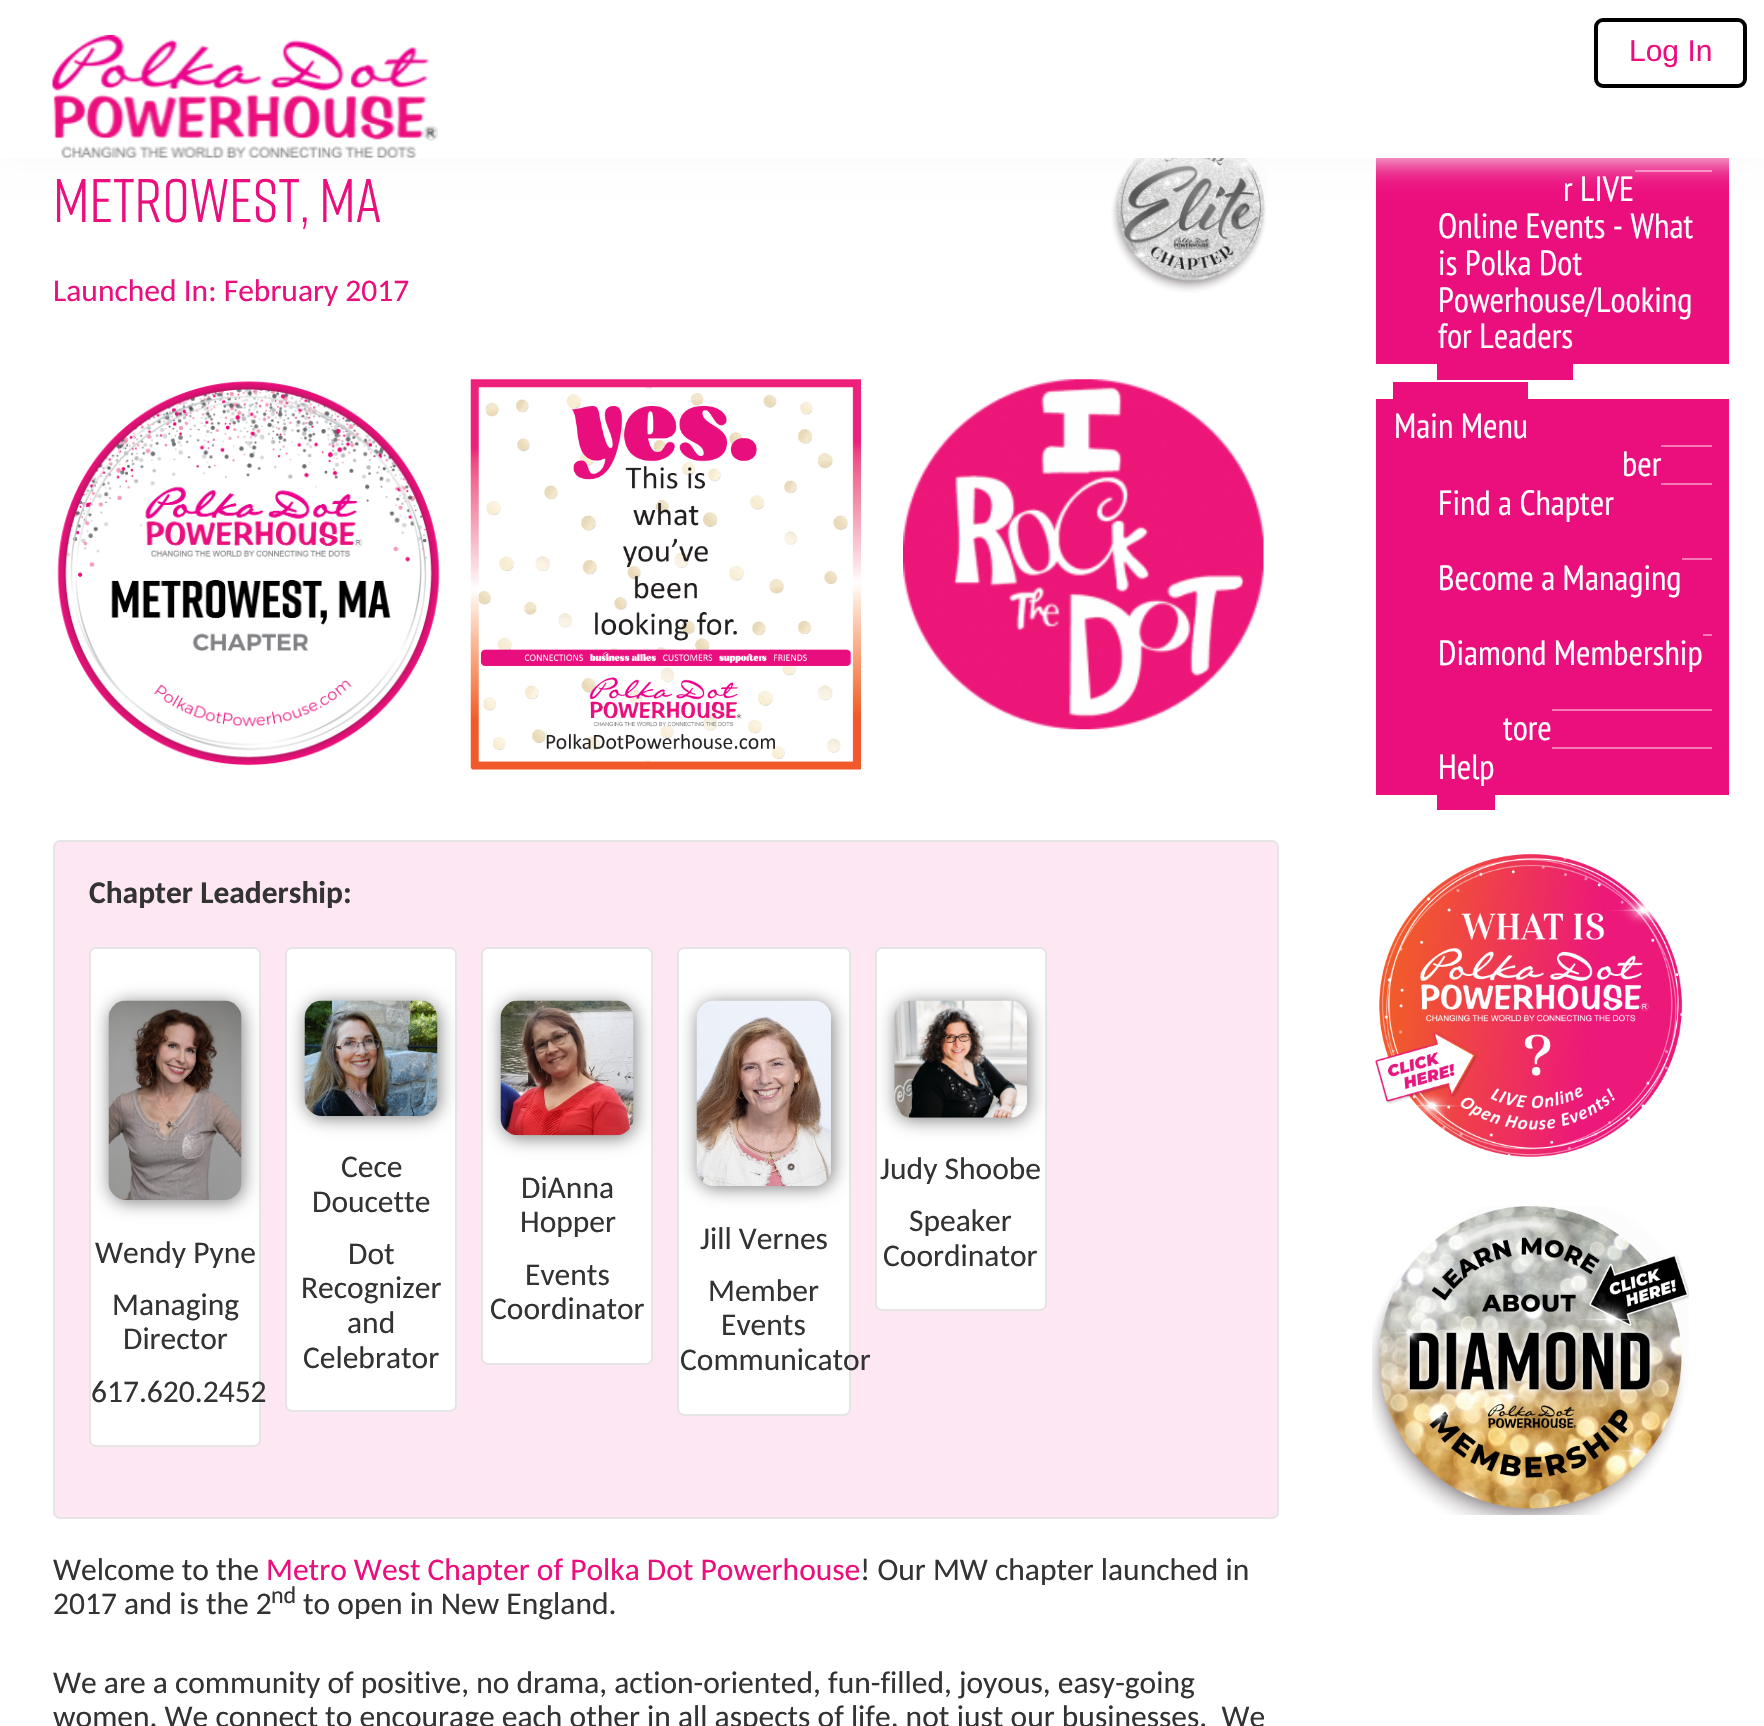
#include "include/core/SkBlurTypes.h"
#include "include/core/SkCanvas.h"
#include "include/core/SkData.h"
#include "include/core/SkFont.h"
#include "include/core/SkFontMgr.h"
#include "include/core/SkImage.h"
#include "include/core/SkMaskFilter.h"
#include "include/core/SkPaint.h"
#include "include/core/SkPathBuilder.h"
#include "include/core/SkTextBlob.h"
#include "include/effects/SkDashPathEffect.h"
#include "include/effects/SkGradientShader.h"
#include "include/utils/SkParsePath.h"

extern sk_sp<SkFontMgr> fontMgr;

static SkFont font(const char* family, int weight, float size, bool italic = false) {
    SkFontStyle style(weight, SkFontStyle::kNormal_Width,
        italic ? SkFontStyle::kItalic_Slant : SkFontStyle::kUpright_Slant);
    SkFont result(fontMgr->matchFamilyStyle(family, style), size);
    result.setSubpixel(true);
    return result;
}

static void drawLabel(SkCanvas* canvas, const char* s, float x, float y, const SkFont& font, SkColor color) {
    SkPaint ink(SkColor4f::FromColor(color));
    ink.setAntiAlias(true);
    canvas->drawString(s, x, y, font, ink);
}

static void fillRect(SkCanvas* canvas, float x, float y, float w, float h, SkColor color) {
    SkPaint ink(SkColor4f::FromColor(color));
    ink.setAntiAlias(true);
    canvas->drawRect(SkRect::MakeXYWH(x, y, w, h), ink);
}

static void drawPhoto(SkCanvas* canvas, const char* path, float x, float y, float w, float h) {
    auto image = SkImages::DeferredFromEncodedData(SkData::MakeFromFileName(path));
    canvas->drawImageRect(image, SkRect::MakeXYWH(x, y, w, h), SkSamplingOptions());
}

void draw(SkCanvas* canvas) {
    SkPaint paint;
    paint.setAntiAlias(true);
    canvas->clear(0xFFFFFFFF);
    drawPhoto(canvas, "assets/img2.png", 1111, 158, 156, 135);
    fillRect(canvas, 1376, 158, 353, 206, 0xFFEB0F7E);
    fillRect(canvas, 1635, 170, 77, 2, 0xFFF679B8);
    paint.setColor(0xFFF9F9F9);
    paint.setMaskFilter(SkMaskFilter::MakeBlur(kNormal_SkBlurStyle, 14));
    canvas->drawRect(SkRect::MakeXYWH(2, 2, 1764, 157), paint);
    paint.setMaskFilter(nullptr);
    fillRect(canvas, 0, 0, 1764, 158, 0xFFFFFFFF);
    drawPhoto(canvas, "assets/img1.png", 52, 35, 386, 123);
    paint.setStroke(true);
    paint.setStrokeWidth(4);
    paint.setColor(0xFF000000);
    canvas->drawRoundRect(SkRect::MakeXYWH(1596, 20, 149, 66), 7, 7, paint);
    SkFont font1 = font("Liberation Sans", 400, 30);
    drawLabel(canvas, "Log In", 1629, 61, font1, 0xFFEB0F7E);
    SkFont font2 = font("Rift", 400, 61.25f);
    drawLabel(canvas, "MetroWest, MA", 53, 222, font2, 0xFFEB0F7E);
    SkFont font3 = font("Carlito", 400, 31.5f);
    drawLabel(canvas, "Launched In: February 2017", 53, 301, font3, 0xFFEB0F7E);
    drawPhoto(canvas, "assets/img3.png", 57, 381, 383, 385);
    drawPhoto(canvas, "assets/img4.png", 470, 379, 391, 391);
    drawPhoto(canvas, "assets/img5.png", 903, 379, 361, 351);
    paint.setStroke(false);
    paint.setColor(0xFFFDE7F2);
    canvas->drawRoundRect(SkRect::MakeXYWH(54, 841, 1224, 677), 6, 6, paint);
    paint.setStroke(true);
    paint.setStrokeWidth(2);
    paint.setColor(0xFFE5E5E5);
    canvas->drawRoundRect(SkRect::MakeXYWH(54, 841, 1224, 677), 6, 6, paint);
    SkFont font4 = font("Carlito", 700, 31.5f);
    drawLabel(canvas, "Chapter Leadership:", 89, 903, font4, 0xFF333333);
    paint.setStroke(false);
    paint.setColor(0xFFFFFFFF);
    canvas->drawRoundRect(SkRect::MakeXYWH(90, 948, 170, 498), 6, 6, paint);
    paint.setStroke(true);
    paint.setColor(0xFFE5E5E5);
    canvas->drawRoundRect(SkRect::MakeXYWH(90, 948, 170, 498), 6, 6, paint);
    paint.setStroke(false);
    paint.setColor(0xFF808080);
    paint.setMaskFilter(SkMaskFilter::MakeBlur(kNormal_SkBlurStyle, 9));
    canvas->drawRoundRect(SkRect::MakeXYWH(110, 1003, 133, 199), 18, 18, paint);
    paint.setMaskFilter(nullptr);
    drawPhoto(canvas, "assets/img6.png", 108, 1000, 134, 200);
    drawLabel(canvas, "Wendy Pyne", 95, 1263, font3, 0xFF333333);
    drawLabel(canvas, "Managing", 112, 1315, font3, 0xFF333333);
    drawLabel(canvas, "Director", 123, 1349, font3, 0xFF333333);
    drawLabel(canvas, "617.620.2452", 91, 1402, font3, 0xFF333333);
    paint.setColor(0xFFFFFFFF);
    canvas->drawRoundRect(SkRect::MakeXYWH(286, 948, 170, 463), 6, 6, paint);
    paint.setStroke(true);
    paint.setColor(0xFFE5E5E5);
    canvas->drawRoundRect(SkRect::MakeXYWH(286, 948, 170, 463), 6, 6, paint);
    paint.setStroke(false);
    paint.setColor(0xFF808080);
    paint.setMaskFilter(SkMaskFilter::MakeBlur(kNormal_SkBlurStyle, 9));
    canvas->drawRoundRect(SkRect::MakeXYWH(306, 1003, 133, 115), 18, 18, paint);
    paint.setMaskFilter(nullptr);
    drawPhoto(canvas, "assets/img7.png", 304, 1000, 134, 116);
    drawLabel(canvas, "Cece", 341, 1177, font3, 0xFF333333);
    drawLabel(canvas, "Doucette", 312, 1212, font3, 0xFF333333);
    drawLabel(canvas, "Dot", 348, 1264, font3, 0xFF333333);
    drawLabel(canvas, "Recognizer", 301, 1298, font3, 0xFF333333);
    drawLabel(canvas, "and", 347, 1333, font3, 0xFF333333);
    drawLabel(canvas, "Celebrator", 303, 1368, font3, 0xFF333333);
    paint.setColor(0xFFFFFFFF);
    canvas->drawRoundRect(SkRect::MakeXYWH(482, 948, 170, 416), 6, 6, paint);
    paint.setStroke(true);
    paint.setColor(0xFFE5E5E5);
    canvas->drawRoundRect(SkRect::MakeXYWH(482, 948, 170, 416), 6, 6, paint);
    paint.setStroke(false);
    paint.setColor(0xFF808080);
    paint.setMaskFilter(SkMaskFilter::MakeBlur(kNormal_SkBlurStyle, 9));
    canvas->drawRoundRect(SkRect::MakeXYWH(502, 1003, 133, 135), 18, 18, paint);
    paint.setMaskFilter(nullptr);
    drawPhoto(canvas, "assets/img8.png", 500, 1000, 134, 136);
    drawLabel(canvas, "DiAnna", 521, 1198, font3, 0xFF333333);
    drawLabel(canvas, "Hopper", 520, 1232, font3, 0xFF333333);
    drawLabel(canvas, "Events", 525, 1285, font3, 0xFF333333);
    drawLabel(canvas, "Coordinator", 490, 1319, font3, 0xFF333333);
    paint.setColor(0xFFFFFFFF);
    canvas->drawRoundRect(SkRect::MakeXYWH(678, 948, 172, 467), 6, 6, paint);
    paint.setStroke(true);
    paint.setColor(0xFFE5E5E5);
    canvas->drawRoundRect(SkRect::MakeXYWH(678, 948, 172, 467), 6, 6, paint);
    paint.setStroke(false);
    paint.setColor(0xFF808080);
    paint.setMaskFilter(SkMaskFilter::MakeBlur(kNormal_SkBlurStyle, 9));
    canvas->drawRoundRect(SkRect::MakeXYWH(698, 1003, 135, 185), 18, 18, paint);
    paint.setMaskFilter(nullptr);
    drawPhoto(canvas, "assets/img9.png", 696, 1000, 135, 186);
    drawLabel(canvas, "Jill Vernes", 700, 1249, font3, 0xFF333333);
    drawLabel(canvas, "Member", 708, 1301, font3, 0xFF333333);
    drawLabel(canvas, "Events", 721, 1335, font3, 0xFF333333);
    drawLabel(canvas, "Communicator", 680, 1370, font3, 0xFF333333);
    paint.setColor(0xFFFFFFFF);
    canvas->drawRoundRect(SkRect::MakeXYWH(876, 948, 170, 362), 6, 6, paint);
    paint.setStroke(true);
    paint.setColor(0xFFE5E5E5);
    canvas->drawRoundRect(SkRect::MakeXYWH(876, 948, 170, 362), 6, 6, paint);
    paint.setStroke(false);
    paint.setColor(0xFF808080);
    paint.setMaskFilter(SkMaskFilter::MakeBlur(kNormal_SkBlurStyle, 9));
    canvas->drawRoundRect(SkRect::MakeXYWH(896, 1003, 133, 117), 18, 18, paint);
    paint.setMaskFilter(nullptr);
    drawPhoto(canvas, "assets/img10.png", 894, 1000, 133, 118);
    drawLabel(canvas, "Judy Shoobe", 880, 1179, font3, 0xFF333333);
    drawLabel(canvas, "Speaker", 909, 1231, font3, 0xFF333333);
    drawLabel(canvas, "Coordinator", 883, 1266, font3, 0xFF333333);
    drawLabel(canvas, "Welcome to the", 53, 1580, font3, 0xFF333333);
    drawLabel(canvas, "Metro West Chapter of Polka Dot Powerhouse", 266, 1580, font3, 0xFFEB0F7E);
    drawLabel(canvas, "! Our MW chapter launched in", 860, 1580, font3, 0xFF333333);
    drawLabel(canvas, "2017 and is the 2", 53, 1614, font3, 0xFF333333);
    SkFont font5 = font("Carlito", 400, 24);
    drawLabel(canvas, "nd", 271, 1603, font5, 0xFF333333);
    drawLabel(canvas, "to open in New England.", 303, 1614, font3, 0xFF333333);
    drawLabel(canvas, "We are a community of positive, no drama, action-oriented, fun-filled, joyous, easy-going", 53, 1693, font3, 0xFF333333);
    drawLabel(canvas, "women. We connect to encourage each other in all aspects of life, not just our businesses.  We", 53, 1727, font3, 0xFF333333);
    SkFont font6 = font("PT Sans Narrow", 400, 35);
    drawLabel(canvas, "r LIVE", 1563, 201, font6, 0xFFFFFFFF);
    drawLabel(canvas, "Online Events - What", 1438, 238, font6, 0xFFFFFFFF);
    drawLabel(canvas, "is Polka Dot", 1438, 275, font6, 0xFFFFFFFF);
    drawLabel(canvas, "Powerhouse/Looking", 1438, 312, font6, 0xFFFFFFFF);
    drawLabel(canvas, "for Leaders", 1438, 348, font6, 0xFFFFFFFF);
    fillRect(canvas, 1437, 364, 136, 16, 0xFFEB0F7E);
    fillRect(canvas, 1376, 399, 353, 396, 0xFFEB0F7E);
    drawLabel(canvas, "Main Menu", 1394, 438, font6, 0xFFFFFFFF);
    fillRect(canvas, 1393, 382, 135, 17, 0xFFEB0F7E);
    fillRect(canvas, 1661, 445, 51, 2, 0xFFF679B8);
    drawLabel(canvas, "ber", 1622, 476, font6, 0xFFFFFFFF);
    fillRect(canvas, 1661, 483, 51, 2, 0xFFF679B8);
    drawLabel(canvas, "Find a Chapter", 1438, 515, font6, 0xFFFFFFFF);
    fillRect(canvas, 1682, 558, 30, 2, 0xFFF679B8);
    drawLabel(canvas, "Become a Managing", 1438, 590, font6, 0xFFFFFFFF);
    fillRect(canvas, 1703, 634, 9, 2, 0xFFF679B8);
    drawLabel(canvas, "Diamond Membership", 1438, 665, font6, 0xFFFFFFFF);
    fillRect(canvas, 1552, 709, 160, 2, 0xFFF679B8);
    drawLabel(canvas, "tore", 1503, 740, font6, 0xFFFFFFFF);
    fillRect(canvas, 1552, 747, 160, 2, 0xFFF679B8);
    drawLabel(canvas, "Help", 1438, 779, font6, 0xFFFFFFFF);
    fillRect(canvas, 1437, 795, 58, 15, 0xFFEB0F7E);
    drawPhoto(canvas, "assets/img11.png", 1375, 853, 308, 304);
    drawPhoto(canvas, "assets/img12.png", 1372, 1206, 317, 309);
}
